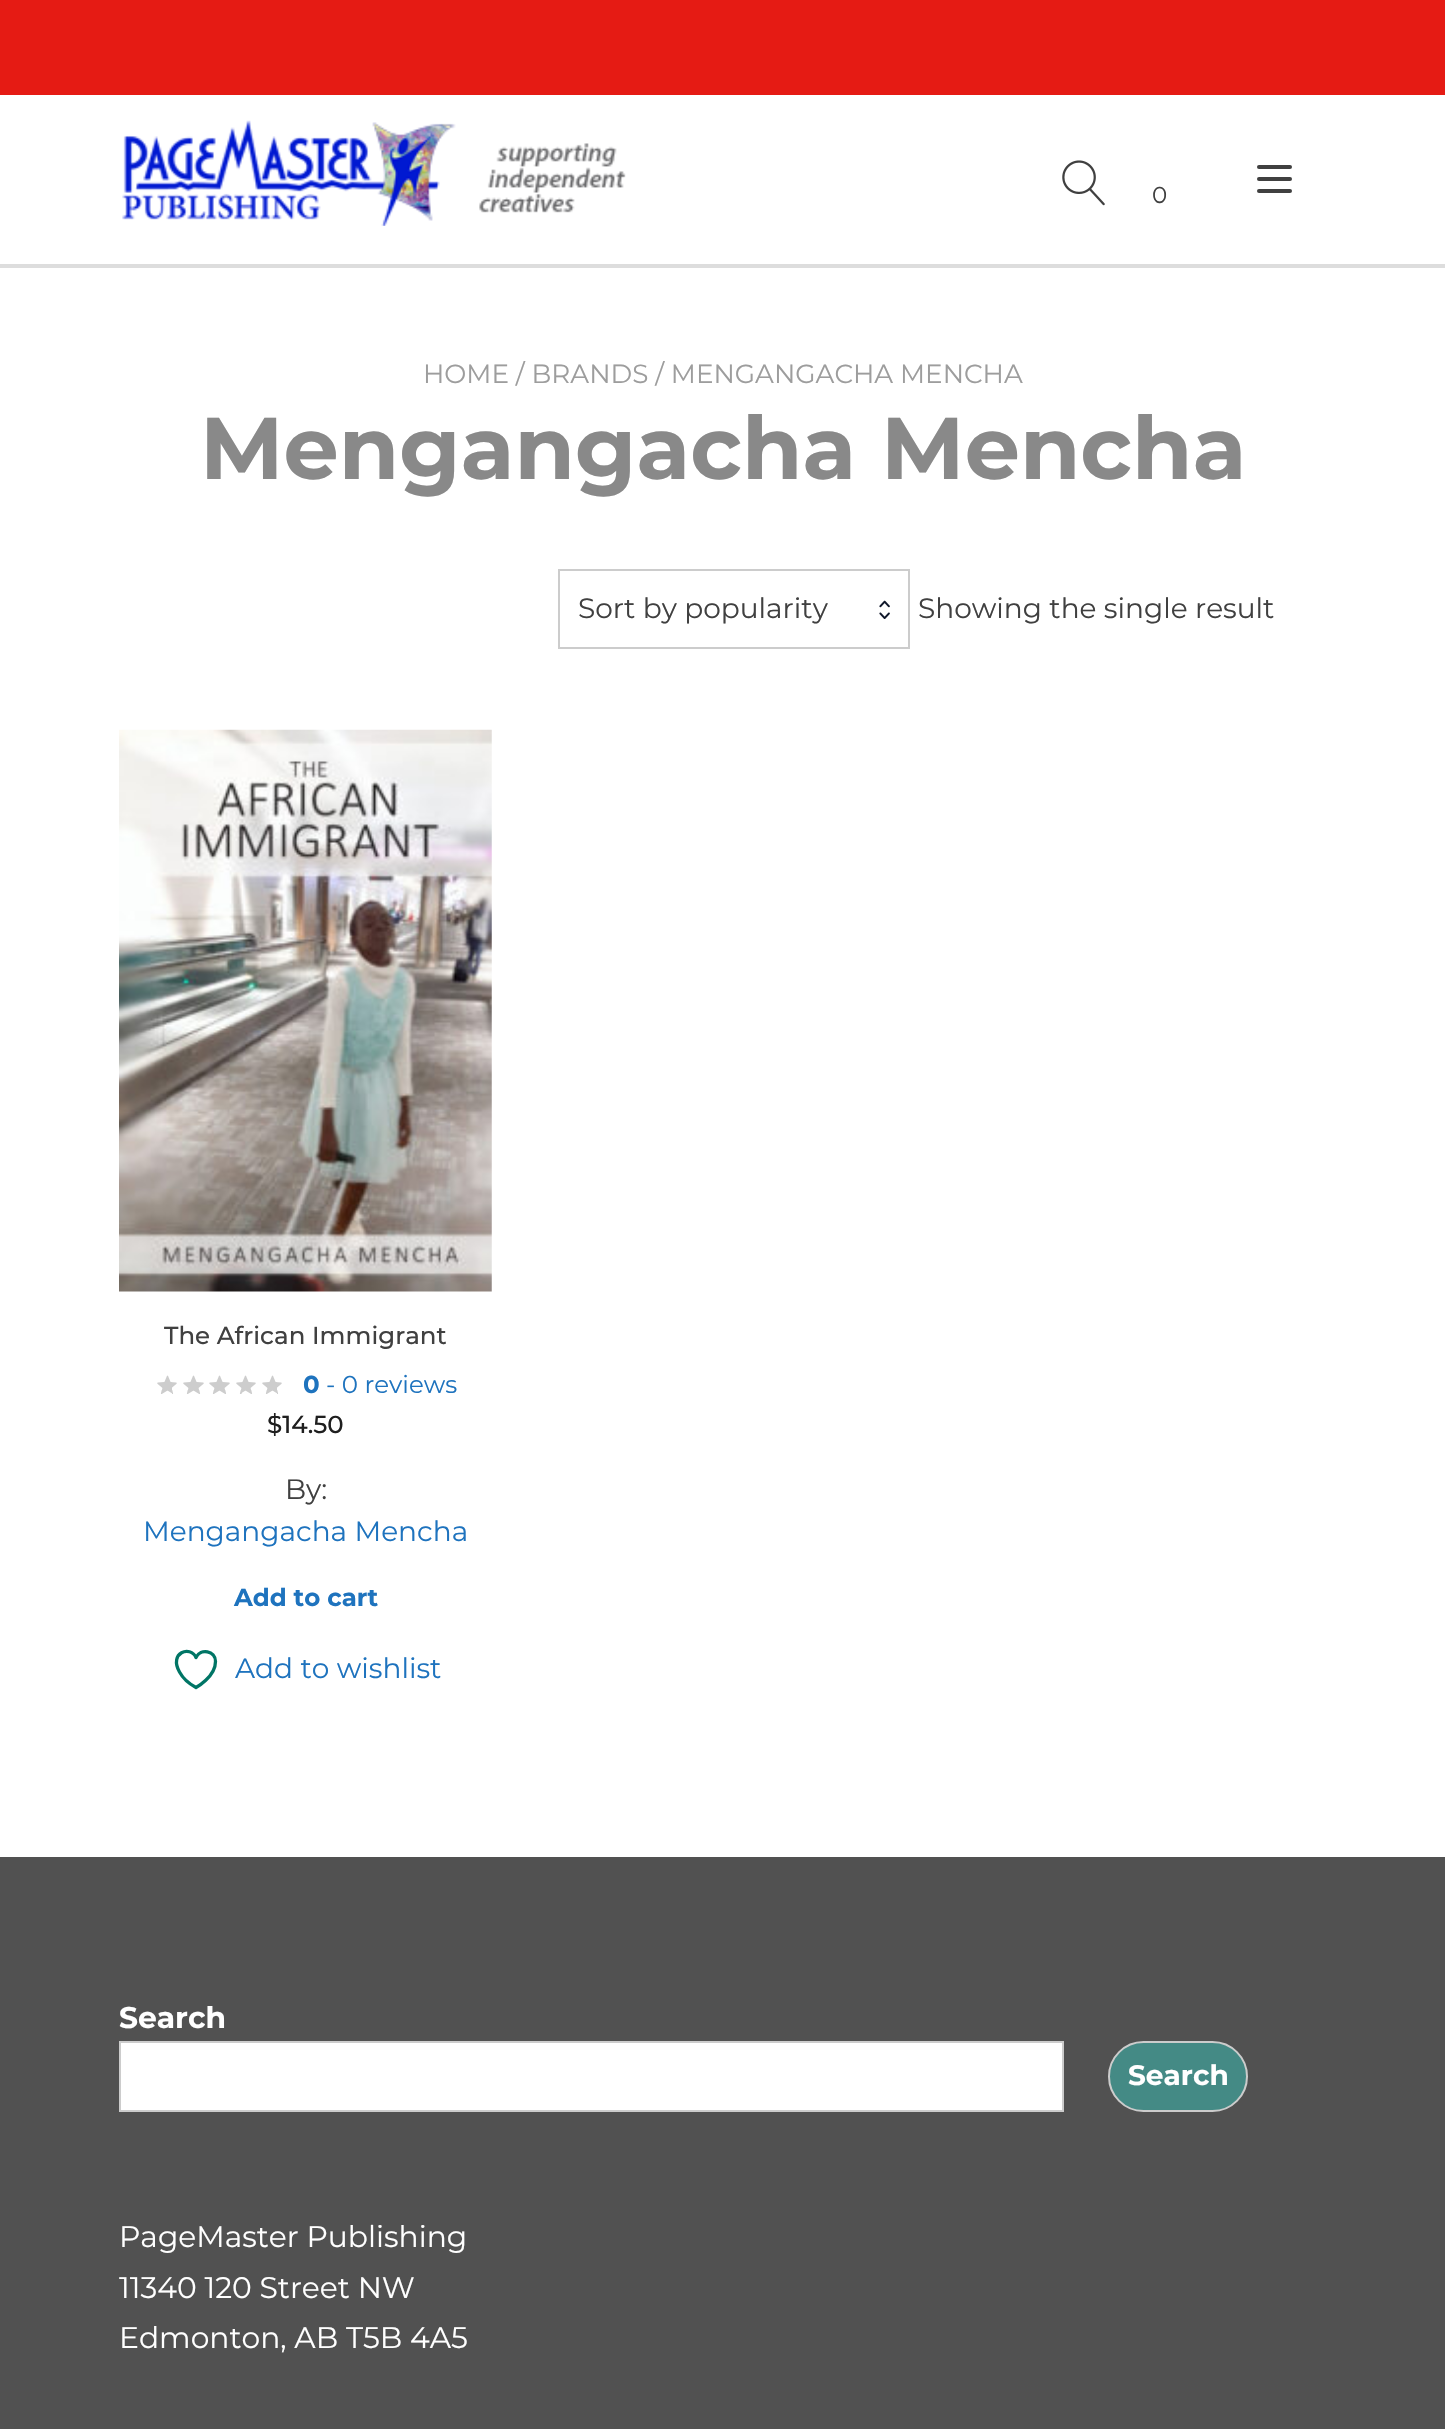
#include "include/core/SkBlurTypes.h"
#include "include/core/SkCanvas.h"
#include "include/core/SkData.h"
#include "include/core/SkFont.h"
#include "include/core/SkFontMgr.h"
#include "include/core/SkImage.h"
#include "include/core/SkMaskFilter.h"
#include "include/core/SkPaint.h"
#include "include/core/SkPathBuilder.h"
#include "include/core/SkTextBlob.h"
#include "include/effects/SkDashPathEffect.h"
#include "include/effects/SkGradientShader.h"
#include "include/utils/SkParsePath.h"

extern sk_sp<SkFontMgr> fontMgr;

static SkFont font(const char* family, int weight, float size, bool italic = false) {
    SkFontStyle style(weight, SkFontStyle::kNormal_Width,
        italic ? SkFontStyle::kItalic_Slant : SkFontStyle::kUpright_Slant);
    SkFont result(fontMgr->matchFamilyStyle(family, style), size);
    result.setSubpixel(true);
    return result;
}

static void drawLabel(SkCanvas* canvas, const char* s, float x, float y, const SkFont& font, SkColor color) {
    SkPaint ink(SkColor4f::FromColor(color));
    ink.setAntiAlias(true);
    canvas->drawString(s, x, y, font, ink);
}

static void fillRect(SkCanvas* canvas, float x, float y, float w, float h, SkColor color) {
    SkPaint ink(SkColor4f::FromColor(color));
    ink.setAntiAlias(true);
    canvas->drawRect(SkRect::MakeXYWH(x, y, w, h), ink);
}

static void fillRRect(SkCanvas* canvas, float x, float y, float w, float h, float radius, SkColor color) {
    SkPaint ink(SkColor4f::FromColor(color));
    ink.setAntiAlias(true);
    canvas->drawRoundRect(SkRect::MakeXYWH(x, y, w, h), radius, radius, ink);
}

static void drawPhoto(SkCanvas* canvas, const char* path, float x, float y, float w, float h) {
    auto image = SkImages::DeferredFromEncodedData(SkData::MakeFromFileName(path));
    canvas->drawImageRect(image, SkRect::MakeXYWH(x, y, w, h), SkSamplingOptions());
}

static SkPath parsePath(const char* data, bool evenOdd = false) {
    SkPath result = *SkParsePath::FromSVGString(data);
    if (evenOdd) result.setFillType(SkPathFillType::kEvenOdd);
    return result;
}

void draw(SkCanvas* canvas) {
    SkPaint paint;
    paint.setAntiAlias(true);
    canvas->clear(0xFFFFFFFF);
    fillRect(canvas, 0, 0, 1445, 95, 0xFFE51B14);
    drawPhoto(canvas, "assets/img1.png", 122, 120, 504, 106);
    fillRRect(canvas, 1257, 165, 35, 4, 2, 0xFF404040);
    fillRRect(canvas, 1257, 177, 35, 4, 2, 0xFF404040);
    fillRRect(canvas, 1257, 189, 35, 4, 2, 0xFF404040);
    drawPhoto(canvas, "assets/img2.png", 1062, 160, 43, 46);
    SkFont font1 = font("Montserrat", 400, 23);
    drawLabel(canvas, "0", 1152, 203, font1, 0xFF404040);
    fillRect(canvas, 0, 264, 1445, 4, 0xFFDDDDDD);
    SkFont font2 = font("Montserrat", 400, 26.25f);
    drawLabel(canvas, "HOME / BRANDS / MENGANGACHA MENCHA", 423, 383, font2, 0xFF9D9D9D);
    SkFont font3 = font("Montserrat", 700, 87.5f);
    drawLabel(canvas, "Mengangacha Mencha", 200, 479, font3, 0xFF898989);
    paint.setStroke(true);
    paint.setStrokeWidth(2);
    paint.setColor(0xFFCCCCCC);
    canvas->drawRect(SkRect::MakeXYWH(559, 570, 350, 78), paint);
    SkFont font4 = font("Montserrat", 400, 28);
    drawLabel(canvas, "Sort by popularity", 578, 618, font4, 0xFF404040);
    drawPhoto(canvas, "assets/img3.png", 879, 600, 11, 19);
    drawLabel(canvas, "Showing the single result", 918, 618, font4, 0xFF404040);
    drawPhoto(canvas, "assets/img4.png", 119, 729, 373, 563);
    SkFont font5 = font("Montserrat", 500, 24.5f);
    drawLabel(canvas, "The African Immigrant", 164, 1344, font5, 0xFF404040);
    drawPhoto(canvas, "assets/img5.png", 157, 1375, 125, 19);
    SkFont font6 = font("Montserrat", 700, 24.5f);
    drawLabel(canvas, "0", 303, 1393, font6, 0xFF1E73BE);
    SkFont font7 = font("Montserrat", 400, 24.5f);
    drawLabel(canvas, "- 0 reviews", 326, 1393, font7, 0xFF1E73BE);
    drawLabel(canvas, "$14.50", 267, 1433, font5, 0xFF1F1F1F);
    drawLabel(canvas, "By:", 285, 1499, font4, 0xFF404040);
    drawLabel(canvas, "Mengangacha Mencha", 143, 1541, font4, 0xFF1E73BE);
    drawLabel(canvas, "Add to cart", 234, 1606, font6, 0xFF1E73BE);
    paint.setStrokeWidth(3.3f);
    paint.setStrokeCap(SkPaint::kRound_Cap);
    paint.setStrokeJoin(SkPaint::kRound_Join);
    paint.setColor(0xFF007565);
    canvas->drawPath(parsePath("M215.5 1661.5C215.5 1650.5 200.5 1648 196 1657.5C190.5 1645 168.5 1652.5 179.5 1672C183 1678.5 189.5 1684 196 1687.5C196 1687.5 215.5 1677 215.5 1661.5Z"), paint);
    drawLabel(canvas, "Add to wishlist", 235, 1678, font4, 0xFF1E73BE);
    fillRect(canvas, 0, 1857, 1445, 572, 0xFF515151);
    SkFont font8 = font("Montserrat", 700, 29.75f);
    drawLabel(canvas, "Search", 119, 2028, font8, 0xFFFFFFFF);
    paint.setStroke(false);
    paint.setColor(0xFFFFFFFF);
    canvas->drawRect(SkRect::MakeXYWH(120, 2042, 943, 69), paint);
    paint.setStroke(true);
    paint.setStrokeWidth(2);
    paint.setStrokeCap(SkPaint::kButt_Cap);
    paint.setStrokeJoin(SkPaint::kMiter_Join);
    paint.setColor(0xFFCCCCCC);
    canvas->drawRect(SkRect::MakeXYWH(120, 2042, 943, 69), paint);
    paint.setStroke(false);
    paint.setColor(0xFF448A85);
    canvas->drawRoundRect(SkRect::MakeXYWH(1109, 2042, 138, 69), 34.5f, 34.5f, paint);
    paint.setStroke(true);
    paint.setColor(0xFFCCCCCC);
    canvas->drawRoundRect(SkRect::MakeXYWH(1109, 2042, 138, 69), 34.5f, 34.5f, paint);
    SkFont font9 = font("Montserrat", 700, 28);
    drawLabel(canvas, "Search", 1128, 2085, font9, 0xFFFFFFFF);
    SkFont font10 = font("Montserrat", 400, 29.75f);
    drawLabel(canvas, "PageMaster Publishing", 119, 2247, font10, 0xFFFFFFFF);
    drawLabel(canvas, "11340 120 Street NW", 119, 2298, font10, 0xFFFFFFFF);
    drawLabel(canvas, "Edmonton, AB T5B 4A5", 119, 2348, font10, 0xFFFFFFFF);
}
